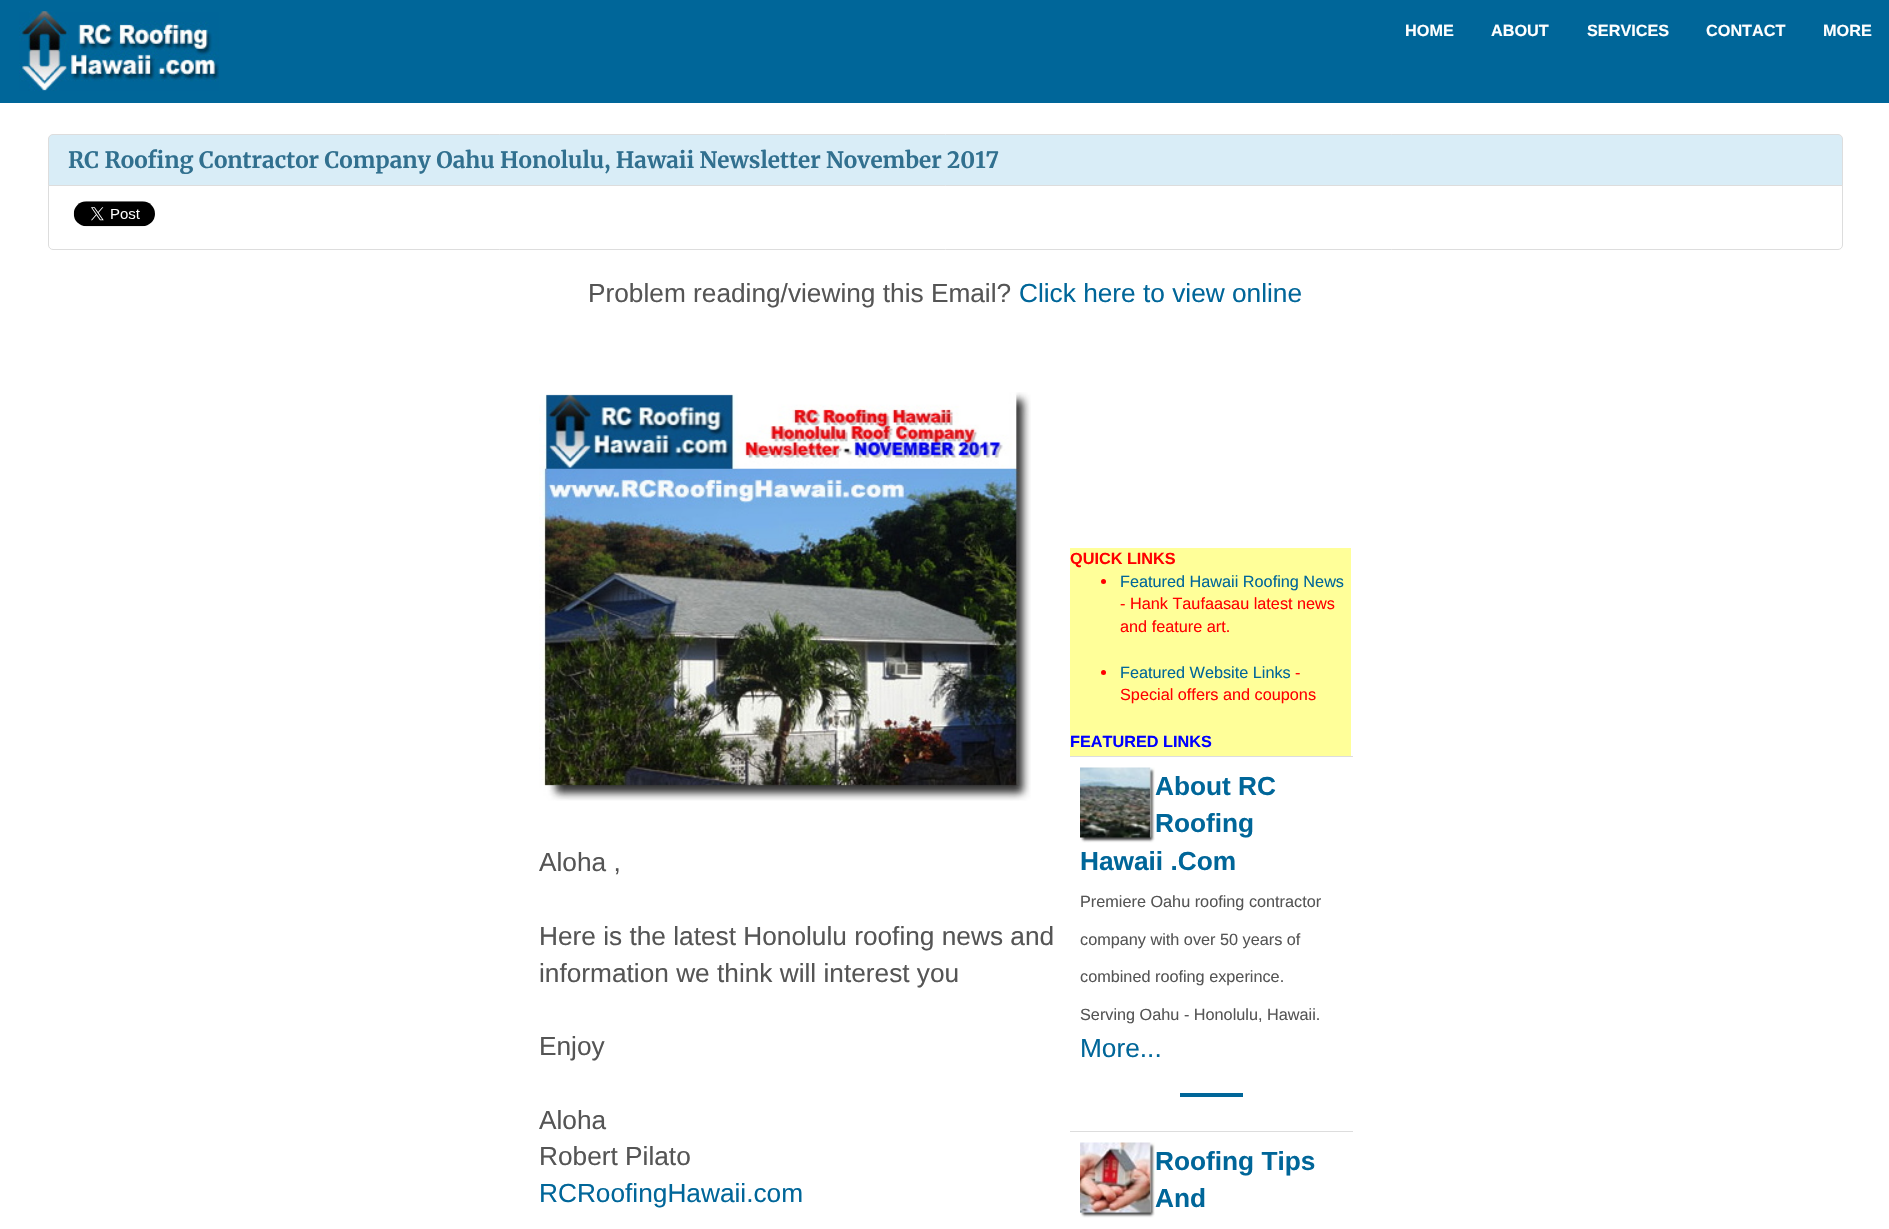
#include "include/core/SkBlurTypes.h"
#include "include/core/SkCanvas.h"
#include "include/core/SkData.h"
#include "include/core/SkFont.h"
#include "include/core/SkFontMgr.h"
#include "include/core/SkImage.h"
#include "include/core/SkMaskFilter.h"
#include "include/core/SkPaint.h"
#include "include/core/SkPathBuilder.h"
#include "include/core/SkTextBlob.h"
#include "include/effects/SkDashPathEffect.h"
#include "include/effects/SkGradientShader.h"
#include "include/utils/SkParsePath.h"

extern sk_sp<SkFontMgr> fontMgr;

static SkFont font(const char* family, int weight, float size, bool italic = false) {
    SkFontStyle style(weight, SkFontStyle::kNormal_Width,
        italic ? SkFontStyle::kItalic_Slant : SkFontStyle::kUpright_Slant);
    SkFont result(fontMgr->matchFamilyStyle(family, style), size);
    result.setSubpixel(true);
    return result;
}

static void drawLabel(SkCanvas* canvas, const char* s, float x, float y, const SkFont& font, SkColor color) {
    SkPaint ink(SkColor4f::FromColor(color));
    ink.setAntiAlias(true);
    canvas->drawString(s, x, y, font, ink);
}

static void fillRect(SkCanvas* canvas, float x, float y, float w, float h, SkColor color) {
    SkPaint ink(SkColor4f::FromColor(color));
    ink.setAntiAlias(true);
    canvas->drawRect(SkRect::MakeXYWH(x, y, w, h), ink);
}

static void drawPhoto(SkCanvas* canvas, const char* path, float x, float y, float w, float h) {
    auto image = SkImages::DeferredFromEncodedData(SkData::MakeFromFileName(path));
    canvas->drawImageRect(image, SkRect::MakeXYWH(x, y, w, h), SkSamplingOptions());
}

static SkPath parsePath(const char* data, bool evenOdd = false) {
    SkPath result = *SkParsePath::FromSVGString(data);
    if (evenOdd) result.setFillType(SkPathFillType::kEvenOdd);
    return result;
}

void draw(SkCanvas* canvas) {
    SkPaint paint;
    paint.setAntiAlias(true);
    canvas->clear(0xFFFFFFFF);
    fillRect(canvas, 0, 0, 1889, 103, 0xFF006699);
    drawPhoto(canvas, "assets/img1.png", 19, 11, 200, 80);
    SkFont font1 = font("Liberation Sans", 700, 16.25f);
    drawLabel(canvas, "HOME", 1405, 36, font1, 0xFFFFFFFF);
    drawLabel(canvas, "ABOUT", 1491, 36, font1, 0xFFFFFFFF);
    drawLabel(canvas, "SERVICES", 1587, 36, font1, 0xFFFFFFFF);
    drawLabel(canvas, "CONTACT", 1706, 36, font1, 0xFFFFFFFF);
    drawLabel(canvas, "MORE", 1823, 36, font1, 0xFFFFFFFF);
    paint.setColor(0xFFD9EDF7);
    canvas->drawPath(parsePath("M53 134.5H1838C1840.5 134.5 1842.5 136.5 1842.5 139V185.5H48.5V139C48.5 136.5 50.5 134.5 53 134.5Z"), paint);
    paint.setStroke(true);
    paint.setStrokeWidth(1);
    paint.setColor(0xFFDDDDDD);
    canvas->drawPath(parsePath("M53 134.5H1838C1840.5 134.5 1842.5 136.5 1842.5 139V185.5H48.5V139C48.5 136.5 50.5 134.5 53 134.5Z"), paint);
    SkFont font2 = font("Merriweather", 700, 22.5f);
    drawLabel(canvas, "RC Roofing Contractor Company Oahu Honolulu, Hawaii Newsletter November 2017", 68, 168, font2, 0xFF31708F);
    paint.setStroke(false);
    paint.setColor(0xFFFFFFFF);
    canvas->drawPath(parsePath("M48.5 185.5H1842.5V245C1842.5 247.5 1840.5 249.5 1838 249.5H53C50.5 249.5 48.5 247.5 48.5 245Z"), paint);
    paint.setStroke(true);
    paint.setColor(0xFFDDDDDD);
    canvas->drawPath(parsePath("M48.5 185.5H1842.5V245C1842.5 247.5 1840.5 249.5 1838 249.5H53C50.5 249.5 48.5 247.5 48.5 245Z"), paint);
    drawPhoto(canvas, "assets/img2.png", 73, 201, 82, 26);
    SkFont font3 = font("Liberation Sans", 400, 26.25f);
    drawLabel(canvas, "Problem reading/viewing this Email?", 588, 302, font3, 0xFF555555);
    drawLabel(canvas, "Click here to view online", 1019, 302, font3, 0xFF006699);
    drawPhoto(canvas, "assets/img3.png", 539, 392, 492, 409);
    drawLabel(canvas, "Aloha ,", 539, 871, font3, 0xFF555555);
    drawLabel(canvas, "Here is the latest Honolulu roofing news and", 539, 945, font3, 0xFF555555);
    drawLabel(canvas, "information we think will interest you", 539, 982, font3, 0xFF555555);
    drawLabel(canvas, "Enjoy", 539, 1055, font3, 0xFF555555);
    drawLabel(canvas, "Aloha", 539, 1129, font3, 0xFF555555);
    drawLabel(canvas, "Robert Pilato", 539, 1165, font3, 0xFF555555);
    drawLabel(canvas, "RCRoofingHawaii.com", 539, 1202, font3, 0xFF006699);
    fillRect(canvas, 1070, 548, 281, 208, 0xFFFFFF99);
    drawLabel(canvas, "QUICK LINKS", 1070, 564, font1, 0xFFFF0000);
    paint.setStroke(false);
    paint.setColor(0xFFFF0000);
    canvas->drawCircle(1103.5f, 581.5f, 2.5f, paint);
    SkFont font4 = font("Liberation Sans", 400, 16.25f);
    drawLabel(canvas, "Featured Hawaii Roofing News", 1120, 587, font4, 0xFF006699);
    drawLabel(canvas, "- Hank Taufaasau latest news", 1120, 609, font4, 0xFFFF0000);
    drawLabel(canvas, "and feature art.", 1120, 632, font4, 0xFFFF0000);
    canvas->drawCircle(1103.5f, 672.5f, 2.5f, paint);
    drawLabel(canvas, "Featured Website Links", 1120, 678, font4, 0xFF006699);
    drawLabel(canvas, "-", 1295, 678, font4, 0xFFFF0000);
    drawLabel(canvas, "Special offers and coupons", 1120, 700, font4, 0xFFFF0000);
    drawLabel(canvas, "FEATURED LINKS", 1070, 747, font1, 0xFF0000FF);
    fillRect(canvas, 1070, 756, 283, 1, 0xFFDDDDDD);
    drawPhoto(canvas, "assets/img4.png", 1080, 767, 75, 76);
    SkFont font5 = font("Liberation Sans", 700, 26.25f);
    drawLabel(canvas, "About RC", 1155, 795, font5, 0xFF006699);
    drawLabel(canvas, "Roofing", 1155, 832, font5, 0xFF006699);
    drawLabel(canvas, "Hawaii .Com", 1080, 870, font5, 0xFF006699);
    drawLabel(canvas, "Premiere Oahu roofing contractor", 1080, 907, font4, 0xFF555555);
    drawLabel(canvas, "company with over 50 years of", 1080, 945, font4, 0xFF555555);
    drawLabel(canvas, "combined roofing experince.", 1080, 982, font4, 0xFF555555);
    drawLabel(canvas, "Serving Oahu - Honolulu, Hawaii.", 1080, 1020, font4, 0xFF555555);
    drawLabel(canvas, "More...", 1080, 1057, font3, 0xFF006699);
    fillRect(canvas, 1180, 1093, 63, 4, 0xFF006699);
    fillRect(canvas, 1070, 1131, 283, 1, 0xFFDDDDDD);
    drawPhoto(canvas, "assets/img5.png", 1080, 1142, 75, 76);
    drawLabel(canvas, "Roofing Tips", 1155, 1170, font5, 0xFF006699);
    drawLabel(canvas, "And", 1155, 1207, font5, 0xFF006699);
}
